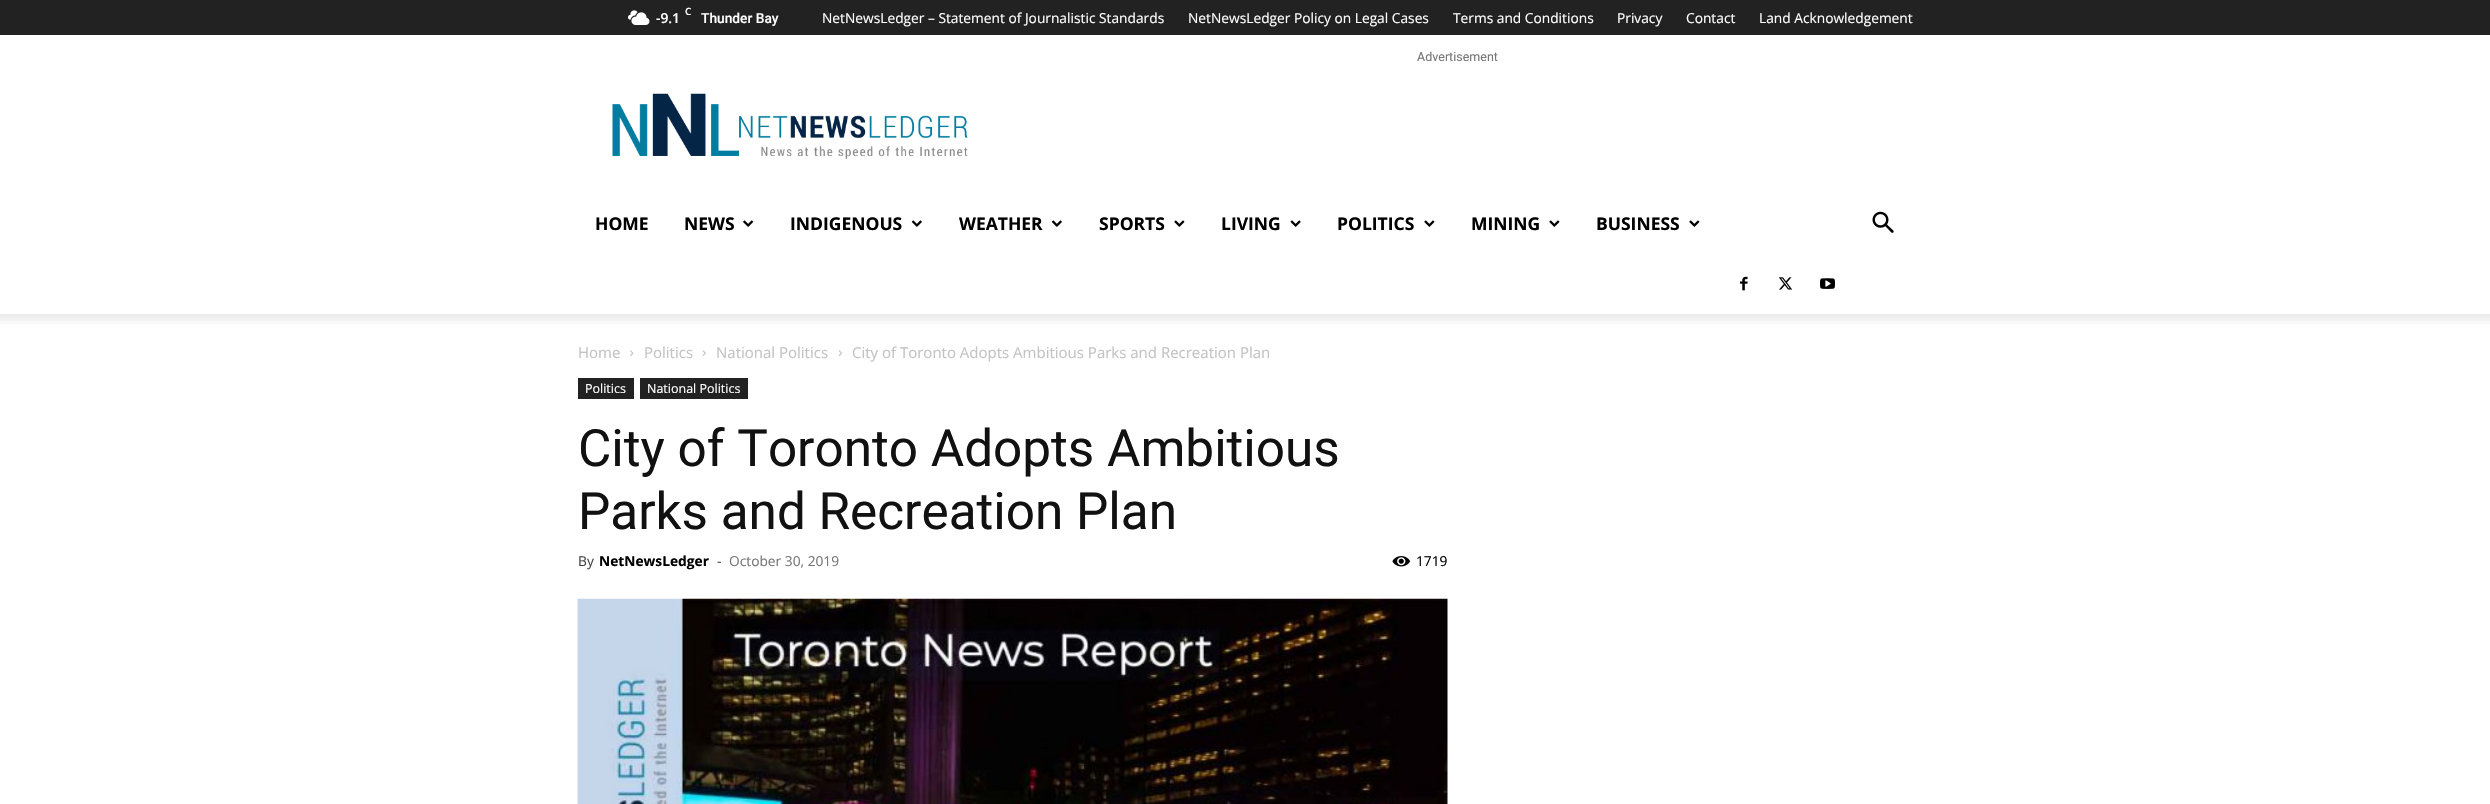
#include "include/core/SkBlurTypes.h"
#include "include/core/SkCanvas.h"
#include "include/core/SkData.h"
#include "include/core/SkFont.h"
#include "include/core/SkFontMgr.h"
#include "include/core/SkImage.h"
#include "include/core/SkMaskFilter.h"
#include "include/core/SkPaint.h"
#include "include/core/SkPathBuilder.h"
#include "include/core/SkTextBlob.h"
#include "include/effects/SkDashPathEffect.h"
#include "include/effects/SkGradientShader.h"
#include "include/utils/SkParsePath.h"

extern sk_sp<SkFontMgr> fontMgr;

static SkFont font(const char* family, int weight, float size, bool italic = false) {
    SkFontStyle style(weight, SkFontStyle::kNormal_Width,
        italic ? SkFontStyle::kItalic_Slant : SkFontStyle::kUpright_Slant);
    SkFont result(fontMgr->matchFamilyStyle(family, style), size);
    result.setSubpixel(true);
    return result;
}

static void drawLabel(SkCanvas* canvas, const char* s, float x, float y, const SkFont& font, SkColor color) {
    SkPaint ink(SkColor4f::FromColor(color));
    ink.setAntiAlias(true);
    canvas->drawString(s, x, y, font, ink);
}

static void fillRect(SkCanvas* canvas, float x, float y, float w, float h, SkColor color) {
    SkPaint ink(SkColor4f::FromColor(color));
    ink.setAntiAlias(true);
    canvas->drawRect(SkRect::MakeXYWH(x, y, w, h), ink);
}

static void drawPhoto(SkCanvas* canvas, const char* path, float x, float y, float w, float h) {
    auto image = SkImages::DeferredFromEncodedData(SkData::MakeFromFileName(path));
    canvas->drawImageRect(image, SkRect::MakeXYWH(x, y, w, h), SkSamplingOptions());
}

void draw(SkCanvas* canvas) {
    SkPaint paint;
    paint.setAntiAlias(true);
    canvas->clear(0xFFFFFFFF);
    fillRect(canvas, 0, 0, 2490, 35, 0xFF222222);
    drawPhoto(canvas, "assets/img1.png", 628, 10, 22, 15);
    SkFont font1 = font("Open Sans", 600, 10);
    drawLabel(canvas, "C", 685, 15, font1, 0xFFFFFFFF);
    SkFont font2 = font("Open Sans", 600, 13.75f);
    drawLabel(canvas, "-9.1", 656, 23, font2, 0xFFFFFFFF);
    SkFont font3 = font("Roboto", 500, 13.75f);
    drawLabel(canvas, "Thunder Bay", 701, 23, font3, 0xFFFFFFFF);
    SkFont font4 = font("Open Sans", 400, 13.75f);
    drawLabel(canvas, "NetNewsLedger – Statement of Journalistic Standards", 822, 23, font4, 0xFFFFFFFF);
    drawLabel(canvas, "NetNewsLedger Policy on Legal Cases", 1188, 23, font4, 0xFFFFFFFF);
    drawLabel(canvas, "Terms and Conditions", 1453, 23, font4, 0xFFFFFFFF);
    drawLabel(canvas, "Privacy", 1617, 23, font4, 0xFFFFFFFF);
    drawLabel(canvas, "Contact", 1686, 23, font4, 0xFFFFFFFF);
    drawLabel(canvas, "Land Acknowledgement", 1759, 23, font4, 0xFFFFFFFF);
    SkFont font5 = font("Roboto", 400, 12.5f);
    drawLabel(canvas, "Advertisement", 1417, 61, font5, 0xFF767676);
    drawPhoto(canvas, "assets/img2.png", 612, 93, 356, 66);
    SkFont font6 = font("Open Sans", 700, 17.5f);
    drawLabel(canvas, "HOME", 595, 230, font6, 0xFF000000);
    drawLabel(canvas, "NEWS", 684, 230, font6, 0xFF000000);
    drawPhoto(canvas, "assets/img3.png", 743, 220, 11, 7);
    drawLabel(canvas, "INDIGENOUS", 790, 230, font6, 0xFF000000);
    drawPhoto(canvas, "assets/img4.png", 911, 220, 11, 7);
    drawLabel(canvas, "WEATHER", 959, 230, font6, 0xFF000000);
    drawPhoto(canvas, "assets/img4.png", 1051, 220, 11, 7);
    drawLabel(canvas, "SPORTS", 1099, 230, font6, 0xFF000000);
    drawPhoto(canvas, "assets/img5.png", 1174, 220, 11, 7);
    drawLabel(canvas, "LIVING", 1221, 230, font6, 0xFF000000);
    drawPhoto(canvas, "assets/img6.png", 1290, 220, 11, 7);
    drawLabel(canvas, "POLITICS", 1337, 230, font6, 0xFF000000);
    drawPhoto(canvas, "assets/img5.png", 1424, 220, 11, 7);
    drawLabel(canvas, "MINING", 1471, 230, font6, 0xFF000000);
    drawPhoto(canvas, "assets/img5.png", 1549, 220, 11, 7);
    drawLabel(canvas, "BUSINESS", 1596, 230, font6, 0xFF000000);
    drawPhoto(canvas, "assets/img5.png", 1689, 220, 11, 7);
    drawPhoto(canvas, "assets/img7.png", 1872, 211, 22, 22);
    drawPhoto(canvas, "assets/img8.png", 1740, 276, 8, 15);
    drawPhoto(canvas, "assets/img9.png", 1778, 277, 15, 13);
    drawPhoto(canvas, "assets/img10.png", 1820, 278, 15, 11);
    drawPhoto(canvas, "assets/img11.png", 0, 314, 2490, 10);
    SkFont font7 = font("Open Sans", 400, 15);
    drawLabel(canvas, "Home", 578, 358, font7, 0xFFC3C3C3);
    drawPhoto(canvas, "assets/img12.png", 630, 350, 4, 6);
    drawLabel(canvas, "Politics", 644, 358, font7, 0xFFC3C3C3);
    drawPhoto(canvas, "assets/img13.png", 702, 350, 4, 6);
    drawLabel(canvas, "National Politics", 716, 358, font7, 0xFFC3C3C3);
    drawPhoto(canvas, "assets/img14.png", 838, 350, 4, 6);
    drawLabel(canvas, "City of Toronto Adopts Ambitious Parks and Recreation Plan", 852, 358, font7, 0xFFC3C3C3);
    fillRect(canvas, 578, 378, 56, 21, 0xFF222222);
    SkFont font8 = font("Open Sans", 400, 12.5f);
    drawLabel(canvas, "Politics", 585, 393, font8, 0xFFFFFFFF);
    fillRect(canvas, 640, 378, 108, 21, 0xFF222222);
    drawLabel(canvas, "National Politics", 647, 393, font8, 0xFFFFFFFF);
    SkFont font9 = font("Roboto", 400, 51.25f);
    drawLabel(canvas, "City of Toronto Adopts Ambitious", 578, 466, font9, 0xFF111111);
    drawLabel(canvas, "Parks and Recreation Plan", 578, 529, font9, 0xFF111111);
    drawLabel(canvas, "By", 578, 566, font4, 0xFF444444);
    SkFont font10 = font("Open Sans", 700, 13.75f);
    drawLabel(canvas, "NetNewsLedger", 599, 566, font10, 0xFF000000);
    drawLabel(canvas, "-", 717, 566, font4, 0xFF444444);
    drawLabel(canvas, "October 30, 2019", 729, 566, font4, 0xFF767676);
    drawPhoto(canvas, "assets/img15.png", 1392, 556, 18, 11);
    drawLabel(canvas, "1719", 1416, 566, font4, 0xFF000000);
    drawPhoto(canvas, "assets/img16.png", 577, 598, 871, 206);
}
